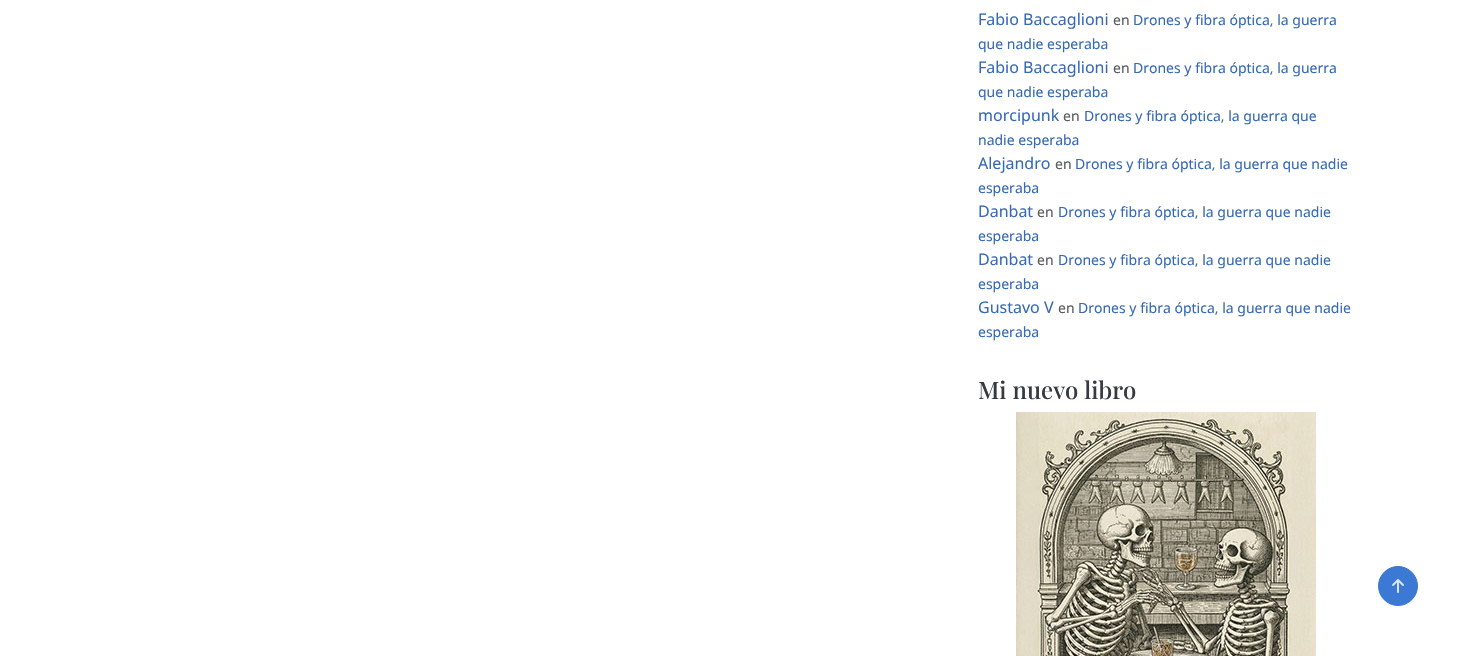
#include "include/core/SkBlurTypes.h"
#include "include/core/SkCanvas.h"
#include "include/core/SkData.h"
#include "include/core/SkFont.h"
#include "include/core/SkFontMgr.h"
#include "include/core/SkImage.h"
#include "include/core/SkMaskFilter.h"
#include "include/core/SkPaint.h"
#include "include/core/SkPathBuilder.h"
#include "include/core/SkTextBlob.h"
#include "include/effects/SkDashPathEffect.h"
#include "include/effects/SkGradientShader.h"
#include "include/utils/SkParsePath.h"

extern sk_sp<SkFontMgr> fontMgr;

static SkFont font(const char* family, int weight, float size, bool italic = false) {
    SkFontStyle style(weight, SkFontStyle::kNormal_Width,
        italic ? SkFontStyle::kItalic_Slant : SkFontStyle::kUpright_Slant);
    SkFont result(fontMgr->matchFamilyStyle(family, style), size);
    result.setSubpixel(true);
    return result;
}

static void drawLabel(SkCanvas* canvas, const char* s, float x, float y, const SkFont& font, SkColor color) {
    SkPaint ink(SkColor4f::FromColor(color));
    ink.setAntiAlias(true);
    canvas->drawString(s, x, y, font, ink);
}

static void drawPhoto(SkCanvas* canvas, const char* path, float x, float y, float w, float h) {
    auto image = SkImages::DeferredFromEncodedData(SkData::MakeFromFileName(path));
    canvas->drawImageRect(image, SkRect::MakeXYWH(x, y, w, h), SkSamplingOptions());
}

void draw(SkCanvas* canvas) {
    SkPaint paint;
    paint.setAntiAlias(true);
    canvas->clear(0xFFFFFFFF);
    SkFont font1 = font("Noto Sans", 400, 16);
    drawLabel(canvas, "Fabio Baccaglioni", 978, 25, font1, 0xFF376AB6);
    SkFont font2 = font("Noto Sans", 400, 14);
    drawLabel(canvas, "en", 1113, 25, font2, 0xFF595C5F);
    drawLabel(canvas, "Drones y fibra óptica, la guerra", 1133, 25, font2, 0xFF376AB6);
    drawLabel(canvas, "que nadie esperaba", 978, 49, font2, 0xFF376AB6);
    drawLabel(canvas, "Fabio Baccaglioni", 978, 73, font1, 0xFF376AB6);
    drawLabel(canvas, "en", 1113, 73, font2, 0xFF595C5F);
    drawLabel(canvas, "Drones y fibra óptica, la guerra", 1133, 73, font2, 0xFF376AB6);
    drawLabel(canvas, "que nadie esperaba", 978, 97, font2, 0xFF376AB6);
    drawLabel(canvas, "morcipunk", 978, 121, font1, 0xFF376AB6);
    drawLabel(canvas, "en", 1063, 121, font2, 0xFF595C5F);
    drawLabel(canvas, "Drones y fibra óptica, la guerra que", 1084, 121, font2, 0xFF376AB6);
    drawLabel(canvas, "nadie esperaba", 978, 145, font2, 0xFF376AB6);
    drawLabel(canvas, "Alejandro", 978, 169, font1, 0xFF376AB6);
    drawLabel(canvas, "en", 1055, 169, font2, 0xFF595C5F);
    drawLabel(canvas, "Drones y fibra óptica, la guerra que nadie", 1075, 169, font2, 0xFF376AB6);
    drawLabel(canvas, "esperaba", 978, 193, font2, 0xFF376AB6);
    drawLabel(canvas, "Danbat", 978, 217, font1, 0xFF376AB6);
    drawLabel(canvas, "en", 1037, 217, font2, 0xFF595C5F);
    drawLabel(canvas, "Drones y fibra óptica, la guerra que nadie", 1058, 217, font2, 0xFF376AB6);
    drawLabel(canvas, "esperaba", 978, 241, font2, 0xFF376AB6);
    drawLabel(canvas, "Danbat", 978, 265, font1, 0xFF376AB6);
    drawLabel(canvas, "en", 1037, 265, font2, 0xFF595C5F);
    drawLabel(canvas, "Drones y fibra óptica, la guerra que nadie", 1058, 265, font2, 0xFF376AB6);
    drawLabel(canvas, "esperaba", 978, 289, font2, 0xFF376AB6);
    drawLabel(canvas, "Gustavo V", 978, 313, font1, 0xFF376AB6);
    drawLabel(canvas, "en", 1058, 313, font2, 0xFF595C5F);
    drawLabel(canvas, "Drones y fibra óptica, la guerra que nadie", 1078, 313, font2, 0xFF376AB6);
    drawLabel(canvas, "esperaba", 978, 337, font2, 0xFF376AB6);
    SkFont font3 = font("Playfair Display", 500, 24);
    drawLabel(canvas, "Mi nuevo libro", 978, 399, font3, 0xFF343A40);
    drawPhoto(canvas, "assets/img1.png", 1016, 412, 300, 244);
    paint.setColor(0xFF3B79D5);
    canvas->drawCircle(1398, 586, 19.5f, paint);
    paint.setStroke(true);
    paint.setStrokeWidth(1);
    paint.setColor(0xFF3B75CB);
    canvas->drawCircle(1398, 586, 19.5f, paint);
    drawPhoto(canvas, "assets/img2.png", 1392, 579, 12, 14);
}
